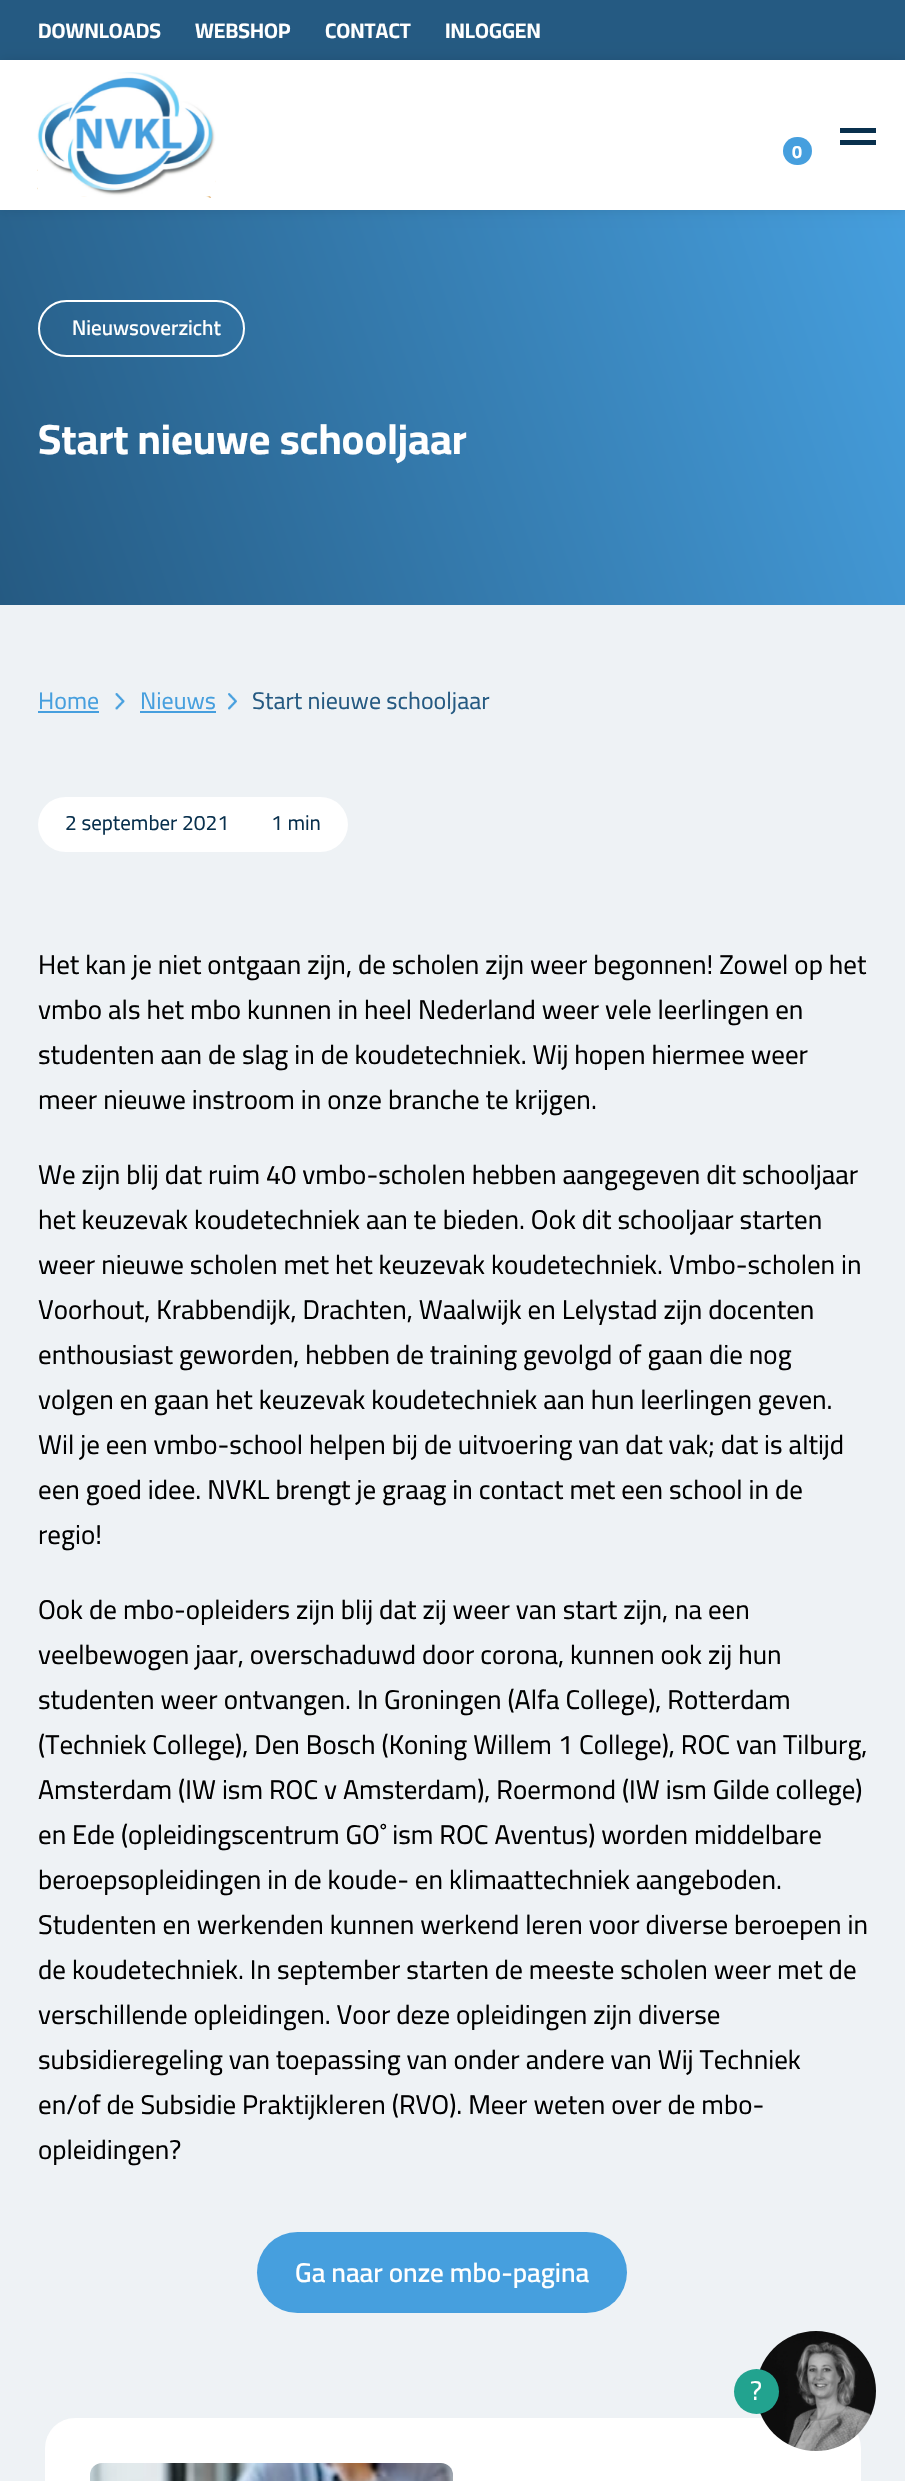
#include "include/core/SkBlurTypes.h"
#include "include/core/SkCanvas.h"
#include "include/core/SkData.h"
#include "include/core/SkFont.h"
#include "include/core/SkFontMgr.h"
#include "include/core/SkImage.h"
#include "include/core/SkMaskFilter.h"
#include "include/core/SkPaint.h"
#include "include/core/SkPathBuilder.h"
#include "include/core/SkTextBlob.h"
#include "include/effects/SkDashPathEffect.h"
#include "include/effects/SkGradientShader.h"
#include "include/utils/SkParsePath.h"

extern sk_sp<SkFontMgr> fontMgr;

static SkFont font(const char* family, int weight, float size, bool italic = false) {
    SkFontStyle style(weight, SkFontStyle::kNormal_Width,
        italic ? SkFontStyle::kItalic_Slant : SkFontStyle::kUpright_Slant);
    SkFont result(fontMgr->matchFamilyStyle(family, style), size);
    result.setSubpixel(true);
    return result;
}

static void drawLabel(SkCanvas* canvas, const char* s, float x, float y, const SkFont& font, SkColor color) {
    SkPaint ink(SkColor4f::FromColor(color));
    ink.setAntiAlias(true);
    canvas->drawString(s, x, y, font, ink);
}

static void fillRect(SkCanvas* canvas, float x, float y, float w, float h, SkColor color) {
    SkPaint ink(SkColor4f::FromColor(color));
    ink.setAntiAlias(true);
    canvas->drawRect(SkRect::MakeXYWH(x, y, w, h), ink);
}

static void fillRRect(SkCanvas* canvas, float x, float y, float w, float h, float radius, SkColor color) {
    SkPaint ink(SkColor4f::FromColor(color));
    ink.setAntiAlias(true);
    canvas->drawRoundRect(SkRect::MakeXYWH(x, y, w, h), radius, radius, ink);
}

static void drawPhoto(SkCanvas* canvas, const char* path, float x, float y, float w, float h) {
    auto image = SkImages::DeferredFromEncodedData(SkData::MakeFromFileName(path));
    canvas->drawImageRect(image, SkRect::MakeXYWH(x, y, w, h), SkSamplingOptions());
}

void draw(SkCanvas* canvas) {
    SkPaint paint;
    paint.setAntiAlias(true);
    canvas->clear(0xFFEEF2F5);
    fillRect(canvas, 0, 0, 905, 60, 0xFF255A82);
    SkFont font1 = font("Cairo", 700, 21);
    drawLabel(canvas, "DOWNLOADS", 38, 38, font1, 0xFFFFFFFF);
    drawLabel(canvas, "WEBSHOP", 195, 38, font1, 0xFFFFFFFF);
    drawLabel(canvas, "CONTACT", 325, 38, font1, 0xFFFFFFFF);
    drawLabel(canvas, "INLOGGEN", 445, 38, font1, 0xFFFFFFFF);
    {
        const SkColor colors[] = {0xFF469FDE, 0xFF255A82};
        const float stops[] = {0, 1};
        const SkPoint ends[] = {{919, 247}, {-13, 568}};
        paint.setShader(SkGradientShader::MakeLinear(ends, colors, stops, 2, SkTileMode::kClamp));
        paint.setAlpha(255);
    }
    canvas->drawRect(SkRect::MakeXYWH(0, 210, 905, 395), paint);
    paint.setShader(nullptr);
    paint.setColor(0x1A000000);
    paint.setMaskFilter(SkMaskFilter::MakeBlur(kNormal_SkBlurStyle, 6));
    canvas->drawRect(SkRect::MakeXYWH(0, 60, 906, 150), paint);
    paint.setMaskFilter(nullptr);
    fillRect(canvas, 0, 60, 905, 150, 0xFFFFFFFF);
    drawPhoto(canvas, "assets/img1.png", 37, 72, 179, 126);
    drawPhoto(canvas, "assets/img2.png", 37, 72, 179, 125);
    fillRect(canvas, 840, 128, 36, 5, 0xFF09304D);
    fillRect(canvas, 840, 140, 36, 5, 0xFF09304D);
    fillRRect(canvas, 783, 137, 29, 28, 14, 0xFF469FDE);
    SkFont font2 = font("Cairo", 700, 18);
    drawLabel(canvas, "0", 792, 158, font2, 0xFFFFFFFF);
    paint.setStroke(true);
    paint.setStrokeWidth(2);
    paint.setColor(0xFFFFFFFF);
    canvas->drawRoundRect(SkRect::MakeXYWH(39, 301, 205, 55), 27.5f, 27.5f, paint);
    SkFont font3 = font("Cairo", 600, 21);
    drawLabel(canvas, "Nieuwsoverzicht", 72, 335, font3, 0xFFFFFFFF);
    SkFont font4 = font("Cairo", 700, 42);
    drawLabel(canvas, "Start nieuwe schooljaar", 38, 454, font4, 0xFFFFFFFF);
    SkFont font5 = font("Cairo", 400, 24);
    drawLabel(canvas, "Home", 38, 709, font5, 0xFF469FDE);
    fillRect(canvas, 38, 711, 61, 2, 0xFF469FDE);
    drawPhoto(canvas, "assets/img3.png", 115, 693, 10, 17);
    drawLabel(canvas, "Nieuws", 140, 709, font5, 0xFF469FDE);
    fillRect(canvas, 140, 711, 76, 2, 0xFF469FDE);
    drawPhoto(canvas, "assets/img4.png", 228, 693, 9, 17);
    drawLabel(canvas, "Start nieuwe schooljaar", 252, 709, font5, 0xFF255A82);
    fillRRect(canvas, 38, 797, 310, 55, 27.5f, 0xFFFFFFFF);
    SkFont font6 = font("Cairo", 400, 21);
    drawLabel(canvas, "2 september 2021", 65, 830, font6, 0xFF09304D);
    drawLabel(canvas, "1 min", 271, 830, font6, 0xFF09304D);
    SkFont font7 = font("Cairo", 400, 27);
    drawLabel(canvas, "Het kan je niet ontgaan zijn, de scholen zijn weer begonnen! Zowel op het", 38, 974, font7, 0xFF000000);
    drawLabel(canvas, "vmbo als het mbo kunnen in heel Nederland weer vele leerlingen en", 38, 1019, font7, 0xFF000000);
    drawLabel(canvas, "studenten aan de slag in de koudetechniek. Wij hopen hiermee weer", 38, 1064, font7, 0xFF000000);
    drawLabel(canvas, "meer nieuwe instroom in onze branche te krijgen.", 38, 1109, font7, 0xFF000000);
    drawLabel(canvas, "We zijn blij dat ruim 40 vmbo-scholen hebben aangegeven dit schooljaar", 38, 1184, font7, 0xFF000000);
    drawLabel(canvas, "het keuzevak koudetechniek aan te bieden. Ook dit schooljaar starten", 38, 1229, font7, 0xFF000000);
    drawLabel(canvas, "weer nieuwe scholen met het keuzevak koudetechniek. Vmbo-scholen in", 38, 1274, font7, 0xFF000000);
    drawLabel(canvas, "Voorhout, Krabbendijk, Drachten, Waalwijk en Lelystad zijn docenten", 38, 1319, font7, 0xFF000000);
    drawLabel(canvas, "enthousiast geworden, hebben de training gevolgd of gaan die nog", 38, 1364, font7, 0xFF000000);
    drawLabel(canvas, "volgen en gaan het keuzevak koudetechniek aan hun leerlingen geven.", 38, 1409, font7, 0xFF000000);
    drawLabel(canvas, "Wil je een vmbo-school helpen bij de uitvoering van dat vak; dat is altijd", 38, 1454, font7, 0xFF000000);
    drawLabel(canvas, "een goed idee. NVKL brengt je graag in contact met een school in de", 38, 1499, font7, 0xFF000000);
    drawLabel(canvas, "regio!", 38, 1544, font7, 0xFF000000);
    drawLabel(canvas, "Ook de mbo-opleiders zijn blij dat zij weer van start zijn, na een", 38, 1619, font7, 0xFF000000);
    drawLabel(canvas, "veelbewogen jaar, overschaduwd door corona, kunnen ook zij hun", 38, 1664, font7, 0xFF000000);
    drawLabel(canvas, "studenten weer ontvangen. In Groningen (Alfa College), Rotterdam", 38, 1709, font7, 0xFF000000);
    drawLabel(canvas, "(Techniek College), Den Bosch (Koning Willem 1 College), ROC van Tilburg,", 38, 1754, font7, 0xFF000000);
    drawLabel(canvas, "Amsterdam (IW ism ROC v Amsterdam), Roermond (IW ism Gilde college)", 38, 1799, font7, 0xFF000000);
    drawLabel(canvas, "en Ede (opleidingscentrum GO˚ ism ROC Aventus) worden middelbare", 38, 1844, font7, 0xFF000000);
    drawLabel(canvas, "beroepsopleidingen in de koude- en klimaattechniek aangeboden.", 38, 1889, font7, 0xFF000000);
    drawLabel(canvas, "Studenten en werkenden kunnen werkend leren voor diverse beroepen in", 38, 1934, font7, 0xFF000000);
    drawLabel(canvas, "de koudetechniek. In september starten de meeste scholen weer met de", 38, 1979, font7, 0xFF000000);
    drawLabel(canvas, "verschillende opleidingen. Voor deze opleidingen zijn diverse", 38, 2024, font7, 0xFF000000);
    drawLabel(canvas, "subsidieregeling van toepassing van onder andere van Wij Techniek", 38, 2069, font7, 0xFF000000);
    drawLabel(canvas, "en/of de Subsidie Praktijkleren (RVO). Meer weten over de mbo-", 38, 2114, font7, 0xFF000000);
    drawLabel(canvas, "opleidingen?", 38, 2159, font7, 0xFF000000);
    fillRRect(canvas, 257, 2232, 370, 81, 40.5f, 0xFF469FDE);
    SkFont font8 = font("Cairo", 600, 27);
    drawLabel(canvas, "Ga naar onze mbo-pagina", 295, 2282, font8, 0xFFFFFFFF);
    fillRRect(canvas, 45, 2418, 816, 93, 30, 0xFFFFFFFF);
    drawPhoto(canvas, "assets/img5.png", 90, 2463, 363, 18);
    drawPhoto(canvas, "assets/img6.png", 760, 2331, 116, 120);
    paint.setStroke(false);
    paint.setColor(0xFF22A38F);
    canvas->drawCircle(756.5f, 2391.5f, 22.5f, paint);
    drawLabel(canvas, "?", 750, 2400, font7, 0xFFFFFFFF);
}
